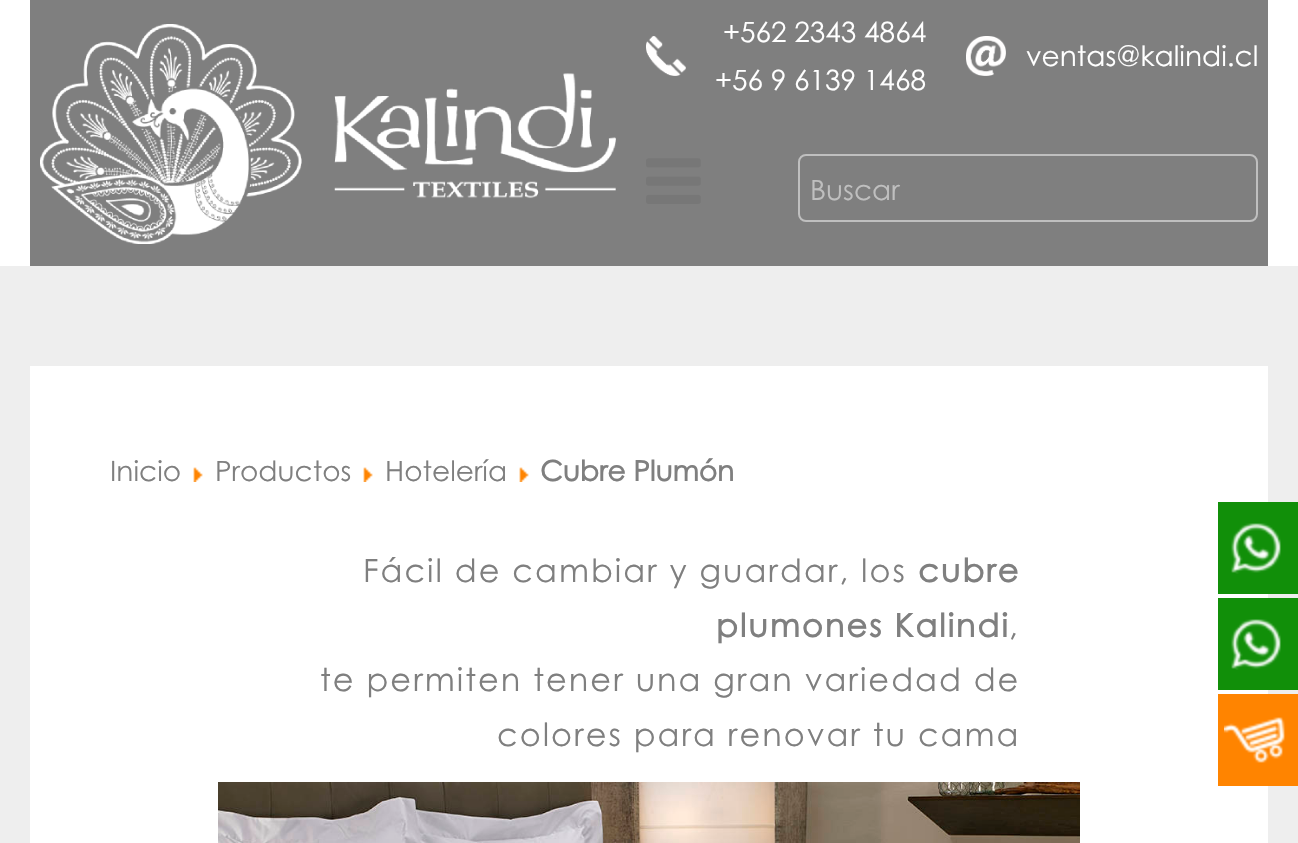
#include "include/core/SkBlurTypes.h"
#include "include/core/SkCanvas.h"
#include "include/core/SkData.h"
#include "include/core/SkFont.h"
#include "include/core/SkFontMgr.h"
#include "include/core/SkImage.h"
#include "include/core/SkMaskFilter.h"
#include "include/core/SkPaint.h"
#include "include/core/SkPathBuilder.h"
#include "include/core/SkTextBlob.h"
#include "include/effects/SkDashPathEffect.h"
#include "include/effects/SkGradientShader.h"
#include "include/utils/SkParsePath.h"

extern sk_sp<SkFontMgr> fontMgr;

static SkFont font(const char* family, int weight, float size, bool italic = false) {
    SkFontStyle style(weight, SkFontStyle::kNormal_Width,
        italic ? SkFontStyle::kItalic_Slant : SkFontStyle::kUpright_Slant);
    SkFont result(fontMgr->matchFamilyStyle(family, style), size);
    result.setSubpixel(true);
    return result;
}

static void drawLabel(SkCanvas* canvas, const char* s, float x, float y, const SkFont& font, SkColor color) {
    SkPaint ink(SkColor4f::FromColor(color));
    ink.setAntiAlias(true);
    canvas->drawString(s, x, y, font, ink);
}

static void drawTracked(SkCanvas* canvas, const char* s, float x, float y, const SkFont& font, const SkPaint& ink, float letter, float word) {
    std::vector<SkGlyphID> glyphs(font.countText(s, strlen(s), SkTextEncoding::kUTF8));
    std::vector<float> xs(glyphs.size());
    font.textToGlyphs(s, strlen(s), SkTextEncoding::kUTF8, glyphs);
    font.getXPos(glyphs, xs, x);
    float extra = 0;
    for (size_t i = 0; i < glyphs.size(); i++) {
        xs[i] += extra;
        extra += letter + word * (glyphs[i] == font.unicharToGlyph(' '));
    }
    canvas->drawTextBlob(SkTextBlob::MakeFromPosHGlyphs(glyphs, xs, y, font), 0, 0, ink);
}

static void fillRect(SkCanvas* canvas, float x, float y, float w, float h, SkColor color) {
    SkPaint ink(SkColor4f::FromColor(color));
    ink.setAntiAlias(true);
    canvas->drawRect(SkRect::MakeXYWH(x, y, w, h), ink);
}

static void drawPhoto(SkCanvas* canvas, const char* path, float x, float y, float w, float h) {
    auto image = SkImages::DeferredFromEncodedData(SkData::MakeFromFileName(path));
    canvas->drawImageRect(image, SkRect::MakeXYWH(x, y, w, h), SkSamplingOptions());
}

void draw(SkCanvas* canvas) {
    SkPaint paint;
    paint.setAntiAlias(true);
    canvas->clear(0xFFFFFFFF);
    fillRect(canvas, 30, 0, 1238, 266, 0xFF7F7F7F);
    drawPhoto(canvas, "assets/img1.png", 40, 24, 576, 220);
    drawPhoto(canvas, "assets/img2.png", 646, 36, 40, 40);
    SkFont font1 = font("Century Gothic", 400, 28);
    drawLabel(canvas, "+562 2343 4864", 723, 42, font1, 0xFFFFFFFF);
    drawLabel(canvas, "+56 9 6139 1468", 715, 90, font1, 0xFFFFFFFF);
    drawPhoto(canvas, "assets/img3.png", 966, 36, 40, 40);
    drawLabel(canvas, "ventas@kalindi.cl", 1026, 66, font1, 0xFFFFFFFF);
    fillRect(canvas, 0, 266, 1298, 577, 0xFFEEEEEE);
    fillRect(canvas, 30, 366, 1238, 477, 0xFFFFFFFF);
    fillRect(canvas, 1218, 502, 80, 92, 0xFF118F09);
    drawPhoto(canvas, "assets/img4.png", 1231, 523, 50, 51);
    fillRect(canvas, 1218, 598, 80, 92, 0xFF118F09);
    drawPhoto(canvas, "assets/img4.png", 1231, 619, 50, 51);
    fillRect(canvas, 1218, 694, 80, 92, 0xFFFF8400);
    drawPhoto(canvas, "assets/img5.png", 1224, 717, 61, 46);
    drawPhoto(canvas, "assets/img6.png", 646, 158, 55, 46);
    paint.setStroke(true);
    paint.setStrokeWidth(2);
    paint.setColor(0xFFBFBFBF);
    canvas->drawRoundRect(SkRect::MakeXYWH(799, 155, 458, 66), 7, 7, paint);
    drawLabel(canvas, "Buscar", 810, 200, font1, 0xFFBFBFBF);
    drawLabel(canvas, "Inicio", 110, 481, font1, 0xFF7F7F7F);
    drawPhoto(canvas, "assets/img7.png", 193, 467, 10, 15);
    drawLabel(canvas, "Productos", 215, 481, font1, 0xFF7F7F7F);
    drawPhoto(canvas, "assets/img7.png", 363, 467, 10, 15);
    drawLabel(canvas, "Hotelería", 385, 481, font1, 0xFF7F7F7F);
    drawPhoto(canvas, "assets/img7.png", 519, 467, 10, 15);
    SkFont font2 = font("Century Gothic", 700, 28);
    drawLabel(canvas, "Cubre Plumón", 540, 481, font2, 0xFF7F7F7F);
    SkFont font3 = font("Century Gothic", 400, 32);
    paint.setStroke(false);
    paint.setColor(0xFF7F7F7F);
    drawTracked(canvas, "Fácil de cambiar y guardar, los", 363, 582, font3, paint, 2, 0);
    SkFont font4 = font("Century Gothic", 700, 32);
    drawTracked(canvas, "cubre", 918, 582, font4, paint, 2, 0);
    drawTracked(canvas, "plumones Kalindi", 716, 637, font4, paint, 2, 0);
    drawTracked(canvas, ",", 1009, 637, font3, paint, 2, 0);
    drawTracked(canvas, "te permiten tener una gran variedad de", 320, 691, font3, paint, 2, 0);
    drawTracked(canvas, "colores para renovar tu cama", 497, 746, font3, paint, 2, 0);
    drawPhoto(canvas, "assets/img8.png", 218, 782, 862, 61);
}
